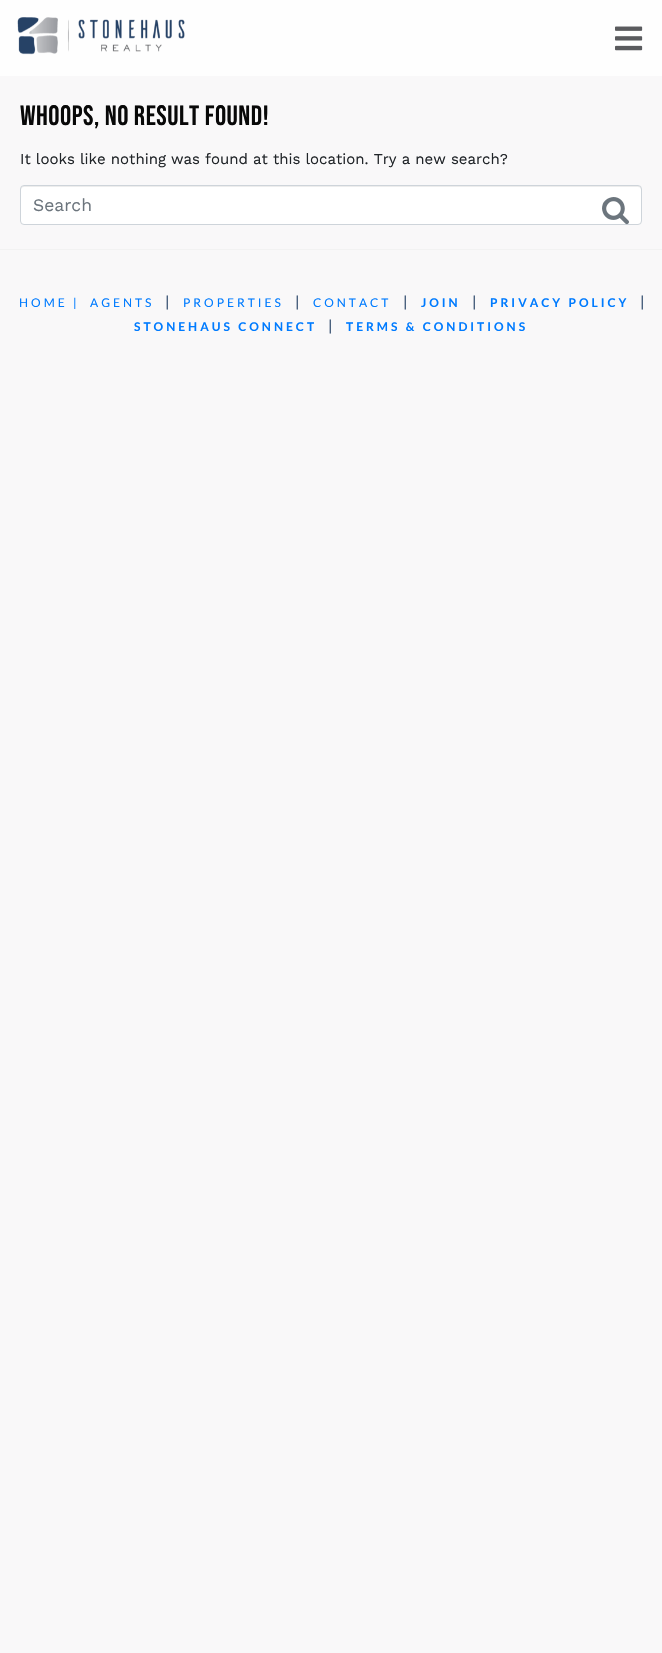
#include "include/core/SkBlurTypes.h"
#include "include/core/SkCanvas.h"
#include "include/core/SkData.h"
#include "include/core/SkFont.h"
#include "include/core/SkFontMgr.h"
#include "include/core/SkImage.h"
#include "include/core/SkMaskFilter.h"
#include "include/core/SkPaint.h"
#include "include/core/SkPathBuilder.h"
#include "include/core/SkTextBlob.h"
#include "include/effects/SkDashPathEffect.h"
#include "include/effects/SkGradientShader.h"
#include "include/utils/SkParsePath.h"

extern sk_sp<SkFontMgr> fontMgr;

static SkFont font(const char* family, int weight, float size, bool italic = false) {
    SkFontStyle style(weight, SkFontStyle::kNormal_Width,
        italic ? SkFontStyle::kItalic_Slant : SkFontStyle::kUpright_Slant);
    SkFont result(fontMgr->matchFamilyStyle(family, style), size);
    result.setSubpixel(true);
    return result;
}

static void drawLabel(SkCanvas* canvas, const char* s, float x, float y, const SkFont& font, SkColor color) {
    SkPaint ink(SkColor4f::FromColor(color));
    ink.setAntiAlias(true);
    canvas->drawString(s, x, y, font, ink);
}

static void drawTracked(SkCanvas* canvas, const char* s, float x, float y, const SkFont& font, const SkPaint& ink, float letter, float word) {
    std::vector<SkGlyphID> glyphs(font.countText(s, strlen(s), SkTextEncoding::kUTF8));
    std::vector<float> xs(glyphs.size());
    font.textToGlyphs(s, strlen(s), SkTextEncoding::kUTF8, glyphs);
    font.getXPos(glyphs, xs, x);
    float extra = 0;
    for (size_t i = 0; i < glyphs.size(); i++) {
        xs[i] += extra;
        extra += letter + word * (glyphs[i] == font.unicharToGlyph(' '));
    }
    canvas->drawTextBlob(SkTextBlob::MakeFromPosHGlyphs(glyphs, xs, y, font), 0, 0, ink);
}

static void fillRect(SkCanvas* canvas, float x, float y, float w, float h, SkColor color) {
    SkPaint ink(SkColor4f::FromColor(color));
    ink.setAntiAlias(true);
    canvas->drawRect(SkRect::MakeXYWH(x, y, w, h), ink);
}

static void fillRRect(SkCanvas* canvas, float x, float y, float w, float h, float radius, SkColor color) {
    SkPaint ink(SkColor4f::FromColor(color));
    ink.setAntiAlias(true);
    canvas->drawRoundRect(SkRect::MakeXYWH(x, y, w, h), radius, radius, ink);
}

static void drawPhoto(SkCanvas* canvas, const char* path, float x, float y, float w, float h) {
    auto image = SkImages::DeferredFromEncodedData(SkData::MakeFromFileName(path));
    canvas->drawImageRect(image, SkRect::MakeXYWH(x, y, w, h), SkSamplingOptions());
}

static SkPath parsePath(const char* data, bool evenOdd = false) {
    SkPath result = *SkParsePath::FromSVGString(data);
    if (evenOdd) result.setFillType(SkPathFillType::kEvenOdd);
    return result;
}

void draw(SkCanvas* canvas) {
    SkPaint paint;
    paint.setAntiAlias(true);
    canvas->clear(0xFFF9F8F9);
    fillRect(canvas, 0, 0, 662, 76, 0xFFFEFEFE);
    drawPhoto(canvas, "assets/img1.png", 17, 17, 168, 38);
    drawPhoto(canvas, "assets/img2.png", 615, 26, 28, 25);
    SkFont font1 = font("Bebas Neue", 400, 28);
    paint.setColor(0xFF080808);
    drawTracked(canvas, "WHOOPS, NO RESULT FOUND!", 20, 125, font1, paint, 0.5f, 0);
    SkFont font2 = font("Work Sans", 400, 15);
    drawLabel(canvas, "It looks like nothing was found at this location. Try a new search?", 20, 164, font2, 0xFF212529);
    fillRRect(canvas, 21, 186, 620, 38, 3, 0xFFFFFFFF);
    paint.setColor(0x12000000);
    canvas->drawPath(parsePath("M24 187H638C640 187 641 188 641 190V189C641 187 640 186 638 186H24C22 186 21 187 21 189V190C21 188 22 187 24 187Z"), paint);
    paint.setStroke(true);
    paint.setStrokeWidth(1);
    paint.setColor(0xFFCED4DA);
    canvas->drawRoundRect(SkRect::MakeXYWH(20.5f, 185.5f, 621, 39), 3.5f, 3.5f, paint);
    SkFont font3 = font("Work Sans", 400, 17.5f);
    drawLabel(canvas, "Search", 33, 211, font3, 0xFF6C757D);
    drawPhoto(canvas, "assets/img3.png", 602, 197, 27, 28);
    fillRect(canvas, 0, 249, 662, 1, 0xFFF2F2F2);
    SkFont font4 = font("Lato", 400, 12);
    paint.setStroke(false);
    paint.setColor(0xFF007BFF);
    drawTracked(canvas, "HOME |", 19, 307, font4, paint, 3, 0);
    drawTracked(canvas, "AGENTS", 90, 307, font4, paint, 3, 0);
    SkFont font5 = font("Lato", 400, 15);
    paint.setColor(0xFF264266);
    drawTracked(canvas, "|", 165, 307, font5, paint, 3, 0);
    paint.setColor(0xFF007BFF);
    drawTracked(canvas, "PROPERTIES", 183, 307, font4, paint, 3, 0);
    paint.setColor(0xFF264266);
    drawTracked(canvas, "|", 295, 307, font5, paint, 3, 0);
    paint.setColor(0xFF007BFF);
    drawTracked(canvas, "CONTACT", 313, 307, font4, paint, 3, 0);
    paint.setColor(0xFF264266);
    drawTracked(canvas, "|", 403, 307, font5, paint, 3, 0);
    SkFont font6 = font("Lato", 700, 12);
    paint.setColor(0xFF007BFF);
    drawTracked(canvas, "JOIN", 421, 307, font6, paint, 3, 0);
    paint.setColor(0xFF264266);
    drawTracked(canvas, "|", 472, 307, font5, paint, 3, 0);
    paint.setColor(0xFF007BFF);
    drawTracked(canvas, "PRIVACY POLICY", 490, 307, font6, paint, 3, 0);
    paint.setColor(0xFF264266);
    drawTracked(canvas, "|", 640, 307, font5, paint, 3, 0);
    paint.setColor(0xFF007BFF);
    drawTracked(canvas, "STONEHAUS CONNECT", 134, 331, font6, paint, 3, 0);
    paint.setColor(0xFF264266);
    drawTracked(canvas, "|", 328, 331, font5, paint, 3, 0);
    paint.setColor(0xFF007BFF);
    drawTracked(canvas, "TERMS & CONDITIONS", 346, 331, font6, paint, 3, 0);
}
